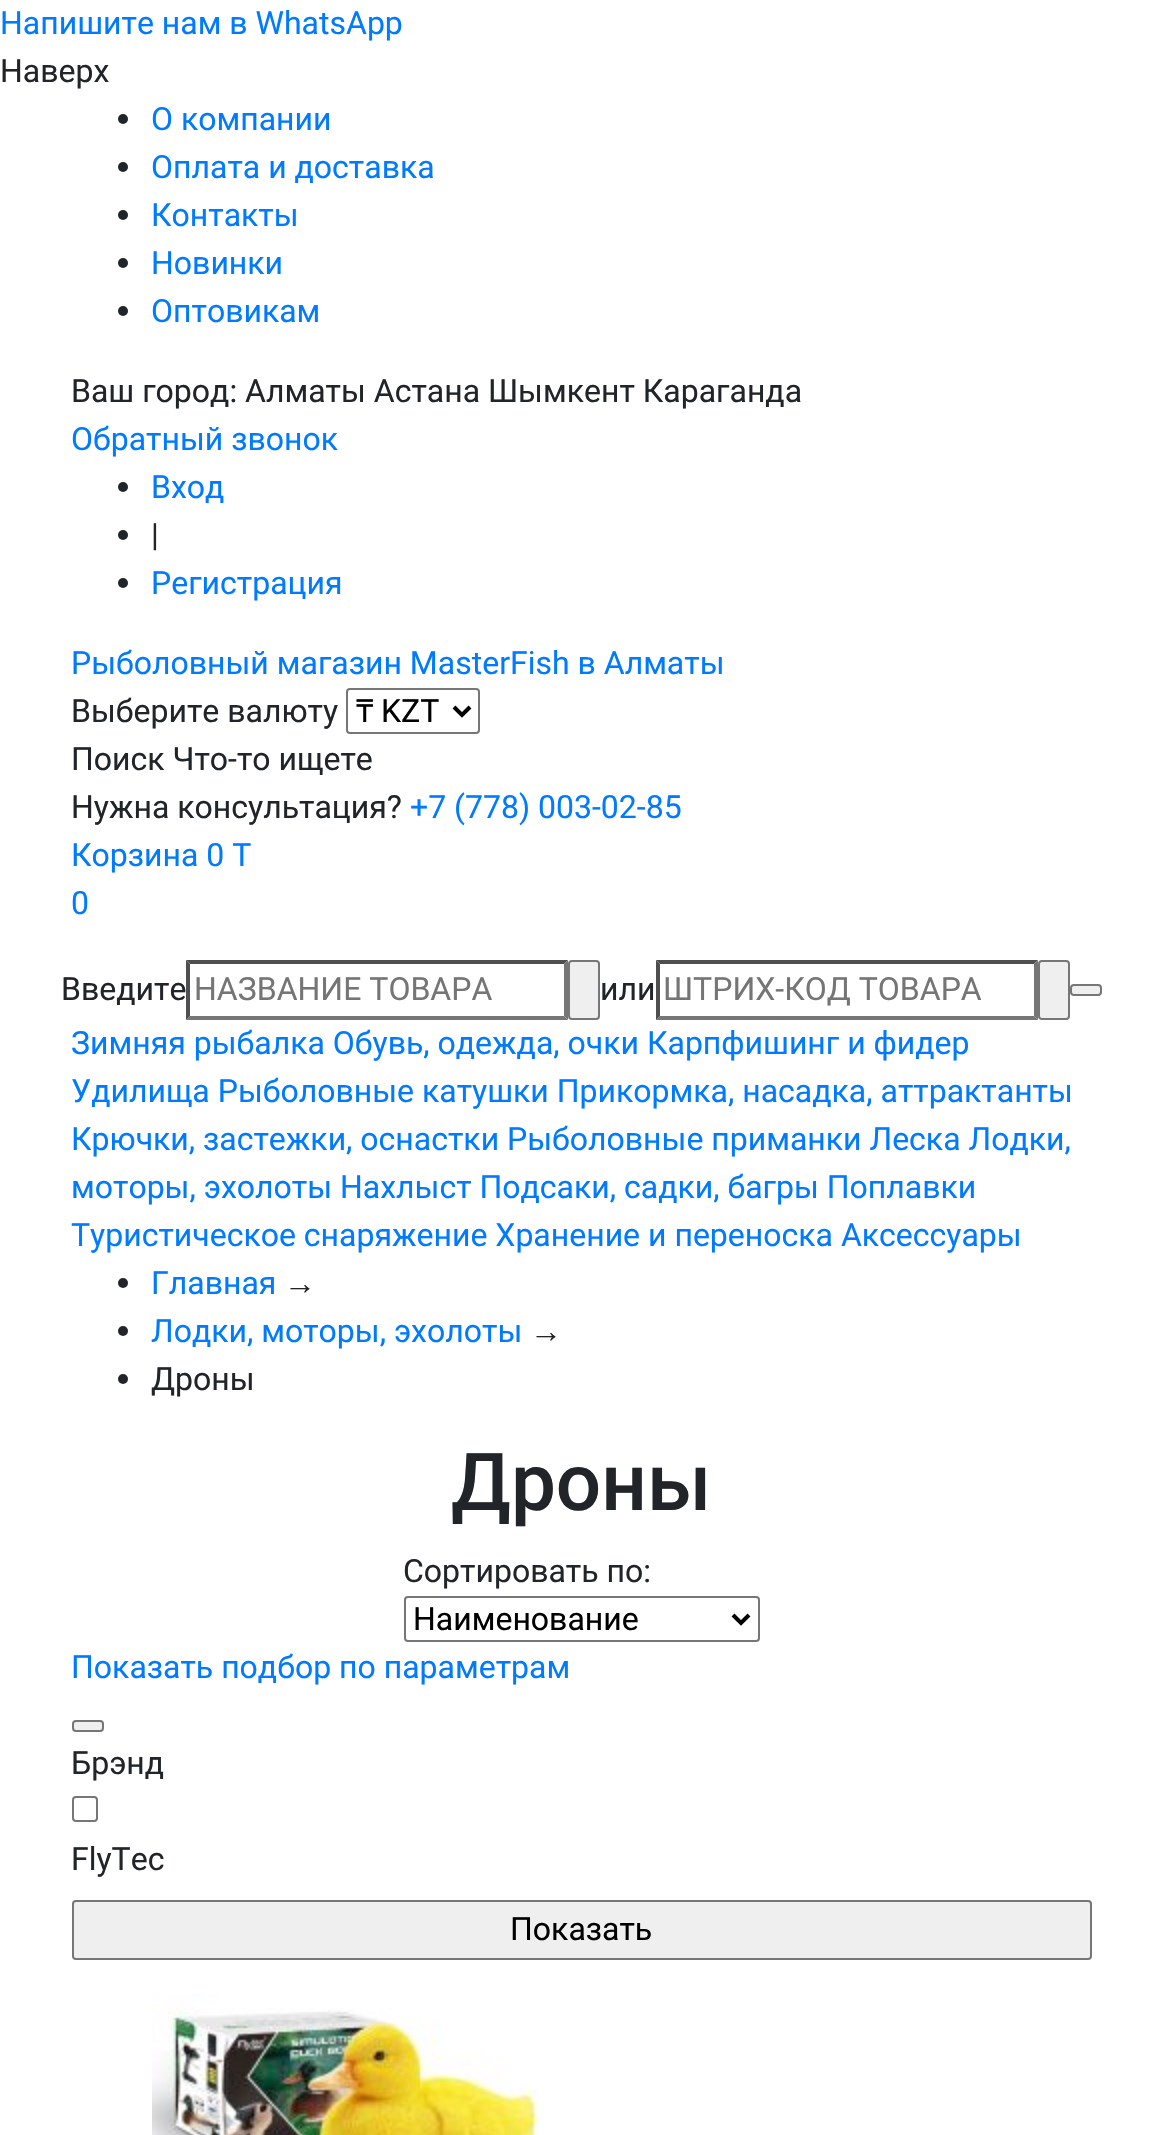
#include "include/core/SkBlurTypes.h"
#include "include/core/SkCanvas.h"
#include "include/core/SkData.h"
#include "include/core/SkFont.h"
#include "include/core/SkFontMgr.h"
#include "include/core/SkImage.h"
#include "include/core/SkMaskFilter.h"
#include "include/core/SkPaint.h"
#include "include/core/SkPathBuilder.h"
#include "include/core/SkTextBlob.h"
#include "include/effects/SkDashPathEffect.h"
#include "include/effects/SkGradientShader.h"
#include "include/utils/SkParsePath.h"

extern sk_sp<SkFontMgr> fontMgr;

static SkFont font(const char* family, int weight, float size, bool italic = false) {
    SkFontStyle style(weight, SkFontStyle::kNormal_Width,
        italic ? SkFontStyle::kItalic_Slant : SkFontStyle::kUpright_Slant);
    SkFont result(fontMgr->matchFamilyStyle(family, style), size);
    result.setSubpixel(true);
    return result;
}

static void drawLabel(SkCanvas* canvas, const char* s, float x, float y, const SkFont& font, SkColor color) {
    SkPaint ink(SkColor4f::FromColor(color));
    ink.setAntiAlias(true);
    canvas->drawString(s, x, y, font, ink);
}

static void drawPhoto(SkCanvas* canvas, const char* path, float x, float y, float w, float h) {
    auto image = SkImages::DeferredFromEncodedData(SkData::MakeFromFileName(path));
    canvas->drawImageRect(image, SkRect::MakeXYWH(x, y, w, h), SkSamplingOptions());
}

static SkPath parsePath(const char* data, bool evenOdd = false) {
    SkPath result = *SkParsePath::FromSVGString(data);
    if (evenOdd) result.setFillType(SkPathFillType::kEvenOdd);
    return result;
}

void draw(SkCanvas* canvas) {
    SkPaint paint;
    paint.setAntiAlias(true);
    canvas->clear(0xFFFFFFFF);
    SkFont font1 = font("Roboto", 400, 32);
    drawLabel(canvas, "Напишите нам в WhatsApp", 0, 34, font1, 0xFF007BFF);
    drawLabel(canvas, "Наверх", 0, 82, font1, 0xFF212529);
    paint.setColor(0xFF212529);
    canvas->drawCircle(123, 119, 5, paint);
    drawLabel(canvas, "О компании", 151, 130, font1, 0xFF007BFF);
    canvas->drawCircle(123, 167, 5, paint);
    drawLabel(canvas, "Оплата и доставка", 151, 178, font1, 0xFF007BFF);
    canvas->drawCircle(123, 215, 5, paint);
    drawLabel(canvas, "Контакты", 151, 226, font1, 0xFF007BFF);
    canvas->drawCircle(123, 263, 5, paint);
    drawLabel(canvas, "Новинки", 151, 274, font1, 0xFF007BFF);
    canvas->drawCircle(123, 311, 5, paint);
    drawLabel(canvas, "Оптовикам", 151, 322, font1, 0xFF007BFF);
    drawLabel(canvas, "Ваш город: Алматы Астана Шымкент Караганда", 71, 402, font1, 0xFF212529);
    drawLabel(canvas, "Обратный звонок", 71, 450, font1, 0xFF007BFF);
    canvas->drawCircle(123, 487, 5, paint);
    drawLabel(canvas, "Вход", 151, 498, font1, 0xFF007BFF);
    canvas->drawCircle(123, 535, 5, paint);
    drawLabel(canvas, "|", 151, 546, font1, 0xFF212529);
    canvas->drawCircle(123, 583, 5, paint);
    drawLabel(canvas, "Регистрация", 151, 594, font1, 0xFF007BFF);
    drawLabel(canvas, "Рыболовный магазин MasterFish в Алматы", 71, 674, font1, 0xFF007BFF);
    drawLabel(canvas, "Выберите валюту", 71, 722, font1, 0xFF212529);
    paint.setStroke(true);
    paint.setStrokeWidth(2);
    paint.setColor(0xFF767676);
    canvas->drawRoundRect(SkRect::MakeXYWH(347, 689, 132, 44), 3, 3, paint);
    paint.setStrokeWidth(4);
    paint.setColor(0xFF000000);
    canvas->drawPath(parsePath("M454 707L462 715L470 707"), paint);
    SkFont font2 = font("Noto Sans", 400, 32);
    drawLabel(canvas, "₸", 356, 722, font2, 0xFF000000);
    drawLabel(canvas, "KZT", 381, 722, font1, 0xFF000000);
    drawLabel(canvas, "Поиск Что-то ищете", 71, 770, font1, 0xFF212529);
    drawLabel(canvas, "Нужна консультация?", 71, 818, font1, 0xFF212529);
    drawLabel(canvas, "+7 (778) 003-02-85", 410, 818, font1, 0xFF007BFF);
    drawLabel(canvas, "Корзина 0 T", 71, 866, font1, 0xFF007BFF);
    drawLabel(canvas, "0", 71, 914, font1, 0xFF007BFF);
    drawLabel(canvas, "Введите", 61, 1000, font1, 0xFF212529);
    paint.setStroke(false);
    paint.setColor(0xFF4F4F4F);
    canvas->drawPath(parsePath("M186 960H568L564 964H190Z"), paint);
    paint.setColor(0xFF767676);
    canvas->drawPath(parsePath("M568 960V1020L564 1016V964Z"), paint);
    canvas->drawPath(parsePath("M568 1020H186L190 1016H564Z"), paint);
    paint.setColor(0xFF4F4F4F);
    canvas->drawPath(parsePath("M186 1020V960L190 964V1016Z"), paint);
    drawLabel(canvas, "НАЗВАНИЕ ТОВАРА", 194, 1000, font1, 0xFF757575);
    paint.setColor(0xFFEFEFEF);
    canvas->drawRoundRect(SkRect::MakeXYWH(569, 961, 30, 58), 3, 3, paint);
    paint.setStroke(true);
    paint.setStrokeWidth(2);
    paint.setColor(0xFF767676);
    canvas->drawRoundRect(SkRect::MakeXYWH(569, 961, 30, 58), 3, 3, paint);
    drawLabel(canvas, "или", 600, 1000, font1, 0xFF212529);
    paint.setStroke(false);
    paint.setColor(0xFF4F4F4F);
    canvas->drawPath(parsePath("M656 960H1038L1034 964H660Z"), paint);
    paint.setColor(0xFF767676);
    canvas->drawPath(parsePath("M1038 960V1020L1034 1016V964Z"), paint);
    canvas->drawPath(parsePath("M1038 1020H656L660 1016H1034Z"), paint);
    paint.setColor(0xFF4F4F4F);
    canvas->drawPath(parsePath("M656 1020V960L660 964V1016Z"), paint);
    drawLabel(canvas, "ШТРИХ-КОД ТОВАРА", 663, 1000, font1, 0xFF757575);
    paint.setColor(0xFFEFEFEF);
    canvas->drawRoundRect(SkRect::MakeXYWH(1039, 961, 30, 58), 3, 3, paint);
    paint.setStroke(true);
    paint.setColor(0xFF767676);
    canvas->drawRoundRect(SkRect::MakeXYWH(1039, 961, 30, 58), 3, 3, paint);
    paint.setStroke(false);
    paint.setColor(0xFFEFEFEF);
    canvas->drawRoundRect(SkRect::MakeXYWH(1071, 985, 30, 10), 3, 3, paint);
    paint.setStroke(true);
    paint.setColor(0xFF767676);
    canvas->drawRoundRect(SkRect::MakeXYWH(1071, 985, 30, 10), 3, 3, paint);
    drawLabel(canvas, "Зимняя рыбалка Обувь, одежда, очки Карпфишинг и фидер", 71, 1054, font1, 0xFF007BFF);
    drawLabel(canvas, "Удилища Рыболовные катушки Прикормка, насадка, аттрактанты", 71, 1102, font1, 0xFF007BFF);
    drawLabel(canvas, "Крючки, застежки, оснастки Рыболовные приманки Леска Лодки,", 71, 1150, font1, 0xFF007BFF);
    drawLabel(canvas, "моторы, эхолоты Нахлыст Подсаки, садки, багры Поплавки", 71, 1198, font1, 0xFF007BFF);
    drawLabel(canvas, "Туристическое снаряжение Хранение и переноска Аксессуары", 71, 1246, font1, 0xFF007BFF);
    paint.setStroke(false);
    paint.setColor(0xFF212529);
    canvas->drawCircle(123, 1283, 5, paint);
    drawLabel(canvas, "Главная", 151, 1294, font1, 0xFF007BFF);
    SkFont font3 = font("Liberation Sans", 400, 32);
    drawLabel(canvas, "→", 284, 1294, font3, 0xFF212529);
    canvas->drawCircle(123, 1331, 5, paint);
    drawLabel(canvas, "Лодки, моторы, эхолоты", 151, 1342, font1, 0xFF007BFF);
    drawLabel(canvas, "→", 530, 1342, font3, 0xFF212529);
    canvas->drawCircle(123, 1379, 5, paint);
    drawLabel(canvas, "Дроны", 151, 1390, font1, 0xFF212529);
    SkFont font4 = font("Roboto", 500, 80);
    drawLabel(canvas, "Дроны", 451, 1510, font4, 0xFF212529);
    drawLabel(canvas, "Сортировать по:", 403, 1582, font1, 0xFF212529);
    paint.setStroke(true);
    paint.setColor(0xFF767676);
    canvas->drawRoundRect(SkRect::MakeXYWH(405, 1597, 354, 44), 3, 3, paint);
    paint.setStrokeWidth(4);
    paint.setColor(0xFF000000);
    canvas->drawPath(parsePath("M733 1615L741 1623L749 1615"), paint);
    drawLabel(canvas, "Наименование", 413, 1630, font1, 0xFF000000);
    drawLabel(canvas, "Показать подбор по параметрам", 71, 1678, font1, 0xFF007BFF);
    paint.setStroke(false);
    paint.setColor(0xFFEFEFEF);
    canvas->drawRoundRect(SkRect::MakeXYWH(73, 1721, 30, 10), 3, 3, paint);
    paint.setStroke(true);
    paint.setStrokeWidth(2);
    paint.setColor(0xFF767676);
    canvas->drawRoundRect(SkRect::MakeXYWH(73, 1721, 30, 10), 3, 3, paint);
    drawLabel(canvas, "Брэнд", 71, 1774, font1, 0xFF212529);
    canvas->drawRoundRect(SkRect::MakeXYWH(73, 1797, 24, 24), 3, 3, paint);
    drawLabel(canvas, "FlyTec", 71, 1870, font1, 0xFF212529);
    paint.setStroke(false);
    paint.setColor(0xFFEFEFEF);
    canvas->drawRoundRect(SkRect::MakeXYWH(73, 1901, 1018, 58), 3, 3, paint);
    paint.setStroke(true);
    paint.setColor(0xFF767676);
    canvas->drawRoundRect(SkRect::MakeXYWH(73, 1901, 1018, 58), 3, 3, paint);
    drawLabel(canvas, "Показать", 510, 1940, font1, 0xFF000000);
    drawPhoto(canvas, "assets/img1.png", 152, 1993, 387, 142);
}
